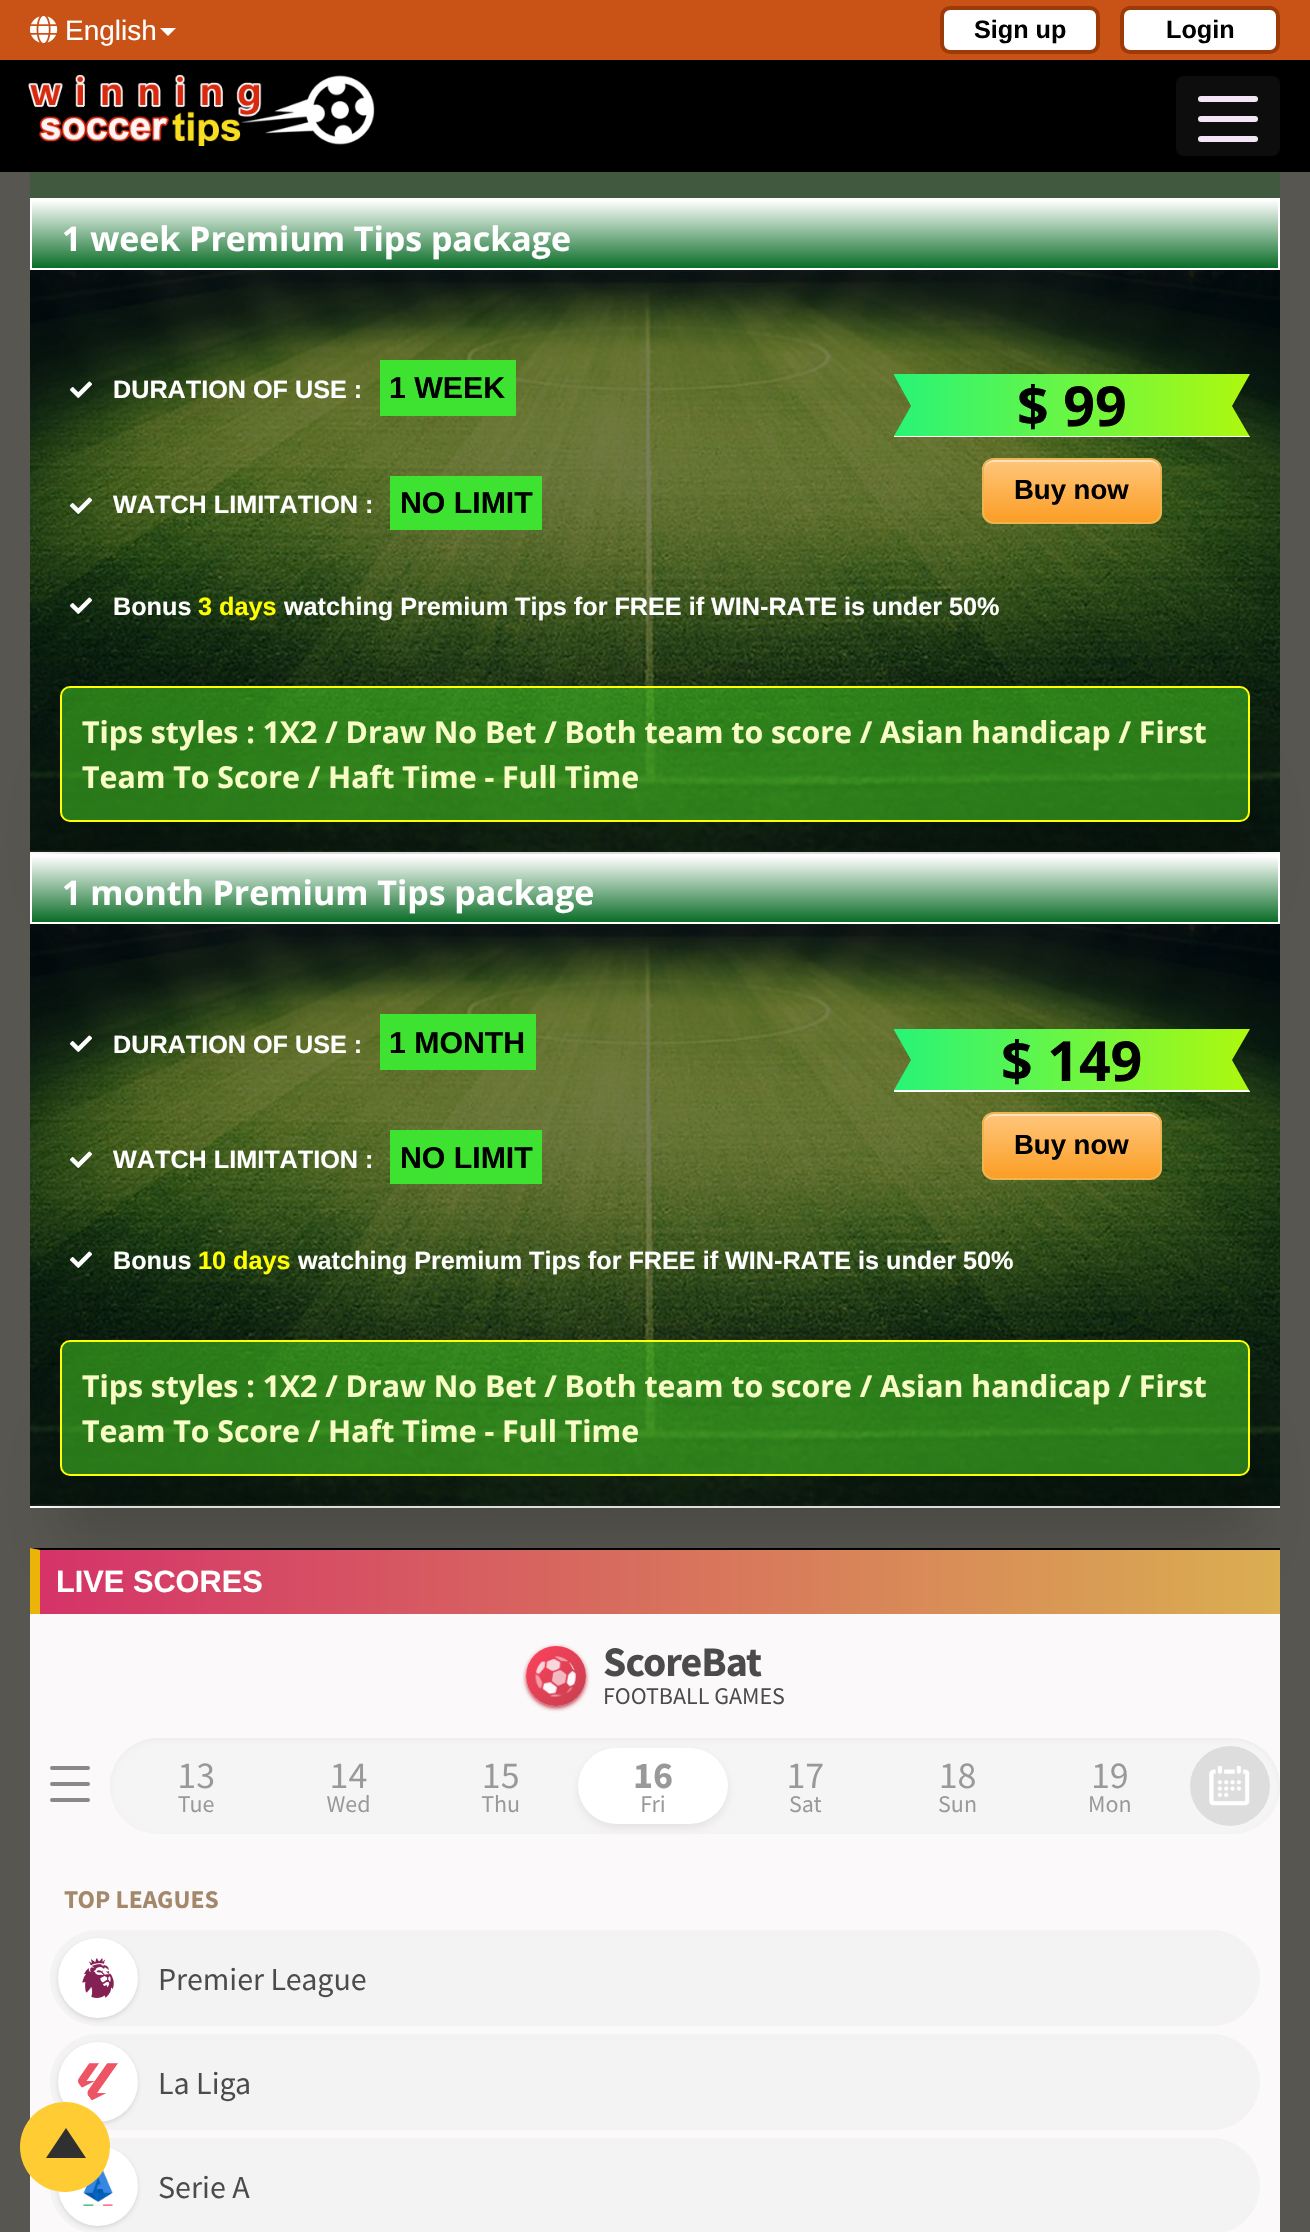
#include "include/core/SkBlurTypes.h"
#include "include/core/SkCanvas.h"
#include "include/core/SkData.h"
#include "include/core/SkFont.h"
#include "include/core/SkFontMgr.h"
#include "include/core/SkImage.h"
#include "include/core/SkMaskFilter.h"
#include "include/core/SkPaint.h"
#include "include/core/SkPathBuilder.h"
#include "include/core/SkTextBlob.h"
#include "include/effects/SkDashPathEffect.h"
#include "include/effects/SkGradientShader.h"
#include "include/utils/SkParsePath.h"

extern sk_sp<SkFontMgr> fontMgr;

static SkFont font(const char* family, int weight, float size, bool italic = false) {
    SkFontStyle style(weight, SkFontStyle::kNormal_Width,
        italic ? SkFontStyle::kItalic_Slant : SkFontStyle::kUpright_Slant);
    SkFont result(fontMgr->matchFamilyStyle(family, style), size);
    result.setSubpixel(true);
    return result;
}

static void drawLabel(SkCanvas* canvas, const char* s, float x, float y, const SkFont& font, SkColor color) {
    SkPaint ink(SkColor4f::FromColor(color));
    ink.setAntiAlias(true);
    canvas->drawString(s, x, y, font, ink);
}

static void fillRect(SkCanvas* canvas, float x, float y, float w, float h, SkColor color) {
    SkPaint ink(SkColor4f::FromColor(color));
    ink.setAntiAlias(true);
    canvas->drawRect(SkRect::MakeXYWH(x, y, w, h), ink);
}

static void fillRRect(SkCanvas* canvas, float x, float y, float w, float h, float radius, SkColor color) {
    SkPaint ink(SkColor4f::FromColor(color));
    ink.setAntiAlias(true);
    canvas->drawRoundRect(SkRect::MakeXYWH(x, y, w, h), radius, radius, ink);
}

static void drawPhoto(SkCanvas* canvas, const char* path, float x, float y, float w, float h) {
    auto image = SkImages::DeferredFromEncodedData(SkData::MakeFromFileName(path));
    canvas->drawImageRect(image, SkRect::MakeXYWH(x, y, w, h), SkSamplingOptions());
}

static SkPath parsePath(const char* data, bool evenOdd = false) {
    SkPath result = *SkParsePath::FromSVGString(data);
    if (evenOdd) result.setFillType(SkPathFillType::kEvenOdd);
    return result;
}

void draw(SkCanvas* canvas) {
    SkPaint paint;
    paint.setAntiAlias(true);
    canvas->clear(0xFF585650);
    fillRect(canvas, 0, 0, 1310, 60, 0xFFC95216);
    drawPhoto(canvas, "assets/img1.png", 30, 16, 28, 27);
    SkFont font1 = font("Liberation Sans", 400, 28);
    drawLabel(canvas, "English", 65, 40, font1, 0xFFFFFFFF);
    paint.setColor(0xFFFFFFFF);
    canvas->drawPath(parsePath("M160 28H176L168 36Z"), paint);
    canvas->drawRoundRect(SkRect::MakeXYWH(942, 8, 156, 44), 8, 8, paint);
    paint.setStroke(true);
    paint.setStrokeWidth(4);
    paint.setColor(0xFF9C3B08);
    canvas->drawRoundRect(SkRect::MakeXYWH(942, 8, 156, 44), 8, 8, paint);
    SkFont font2 = font("Liberation Sans", 700, 25.2f);
    drawLabel(canvas, "Sign up", 974, 38, font2, 0xFF000000);
    paint.setStroke(false);
    paint.setColor(0xFFFFFFFF);
    canvas->drawRoundRect(SkRect::MakeXYWH(1122, 8, 156, 44), 8, 8, paint);
    paint.setStroke(true);
    paint.setColor(0xFF9C3B08);
    canvas->drawRoundRect(SkRect::MakeXYWH(1122, 8, 156, 44), 8, 8, paint);
    drawLabel(canvas, "Login", 1166, 38, font2, 0xFF000000);
    fillRect(canvas, 0, 60, 1310, 112, 0xFF000000);
    drawPhoto(canvas, "assets/img2.png", 28, 74, 347, 72);
    fillRRect(canvas, 1176, 76, 104, 80, 8, 0xFF0D0D0D);
    fillRRect(canvas, 1198, 96, 60, 6, 3, 0xFFF3E5F5);
    fillRRect(canvas, 1198, 116, 60, 6, 3, 0xFFF3E5F5);
    fillRRect(canvas, 1198, 136, 60, 6, 3, 0xFFF3E5F5);
    fillRect(canvas, 30, 172, 1250, 26, 0xFF41593F);
    paint.setStroke(false);
    {
        const SkColor colors[] = {0xFF0A6D27, 0xFFFFFFFF};
        const float stops[] = {0, 1};
        const SkPoint ends[] = {{655, 268}, {655, 200}};
        paint.setShader(SkGradientShader::MakeLinear(ends, colors, stops, 2, SkTileMode::kClamp));
        paint.setAlpha(255);
    }
    canvas->drawRect(SkRect::MakeXYWH(32, 200, 1246, 68), paint);
    paint.setStroke(true);
    paint.setStrokeWidth(2);
    paint.setShader(nullptr);
    paint.setColor(0xFFFFFFFF);
    canvas->drawRect(SkRect::MakeXYWH(31, 199, 1248, 70), paint);
    SkFont font3 = font("Open Sans", 700, 33.9f);
    drawLabel(canvas, "1 week Premium Tips package", 62, 251, font3, 0xFFFFFFFF);
    drawPhoto(canvas, "assets/img3.png", 30, 270, 1250, 582);
    fillRect(canvas, 30, 852, 1250, 2, 0xFFFFFFFF);
    drawPhoto(canvas, "assets/img4.png", 70, 381, 22, 17);
    drawLabel(canvas, "DURATION OF USE :", 113, 398, font2, 0xFFFFFFFF);
    fillRect(canvas, 380, 360, 136, 56, 0xFF3EE230);
    SkFont font4 = font("Liberation Sans", 700, 30.25f);
    drawLabel(canvas, "1 WEEK", 389, 398, font4, 0xFF000000);
    drawPhoto(canvas, "assets/img5.png", 70, 497, 22, 17);
    drawLabel(canvas, "WATCH LIMITATION :", 113, 513, font2, 0xFFFFFFFF);
    fillRect(canvas, 390, 476, 152, 54, 0xFF3EE230);
    drawLabel(canvas, "NO LIMIT", 400, 513, font4, 0xFF000000);
    paint.setStroke(false);
    {
        const SkColor colors[] = {0xFF28F477, 0xFFAEF80E};
        const float stops[] = {0, 1};
        const SkPoint ends[] = {{894, 405}, {1250, 405}};
        paint.setShader(SkGradientShader::MakeLinear(ends, colors, stops, 2, SkTileMode::kClamp));
        paint.setAlpha(255);
    }
    canvas->drawPath(parsePath("M1250 374L1232 406L1250 437H894V436L911 406L894 375V374Z"), paint);
    paint.setShader(nullptr);
    paint.setColor(0xFFFFFFFF);
    canvas->drawPath(parsePath("M894 436H1249L1250 437H894Z"), paint);
    SkFont font5 = font("Open Sans", 700, 55.5f);
    drawLabel(canvas, "$ 99", 1017, 426, font5, 0xFF000000);
    canvas->save();
    canvas->clipPath(parsePath("M994 458H1150C1156.5 458 1162 463.5 1162 470V512C1162 518.5 1156.5 524 1150 524H994C987.5 524 982 518.5 982 512V470C982 463.5 987.5 458 994 458Z"), true);
    {
        const SkColor colors[] = {0xFFFFC477, 0xFFFB9E25};
        const float stops[] = {0.05f, 1};
        const SkPoint ends[] = {{1072, 460}, {1072, 522}};
        paint.setShader(SkGradientShader::MakeLinear(ends, colors, stops, 2, SkTileMode::kClamp));
        paint.setAlpha(255);
    }
    canvas->drawRect(SkRect::MakeXYWH(982, 460, 180, 62), paint);
    canvas->restore();
    paint.setShader(nullptr);
    paint.setColor(0xFFFCE2C1);
    canvas->drawPath(parsePath("M994 462H1150C1156 462 1160 466 1160 472V470C1160 464 1156 460 1150 460H994C988 460 984 464 984 470V472C984 466 988 462 994 462Z"), paint);
    paint.setStroke(true);
    paint.setColor(0xFFEEB44F);
    canvas->drawRoundRect(SkRect::MakeXYWH(983, 459, 178, 64), 11, 11, paint);
    SkFont font6 = font("Liberation Sans", 700, 27.5f);
    drawLabel(canvas, "Buy now", 1014, 499, font6, 0xFF000000);
    drawPhoto(canvas, "assets/img6.png", 70, 597, 22, 17);
    drawLabel(canvas, "Bonus", 113, 615, font2, 0xFFFFFFFF);
    drawLabel(canvas, "3 days", 198, 615, font2, 0xFFFFFF00);
    drawLabel(canvas, "watching Premium Tips for FREE if WIN-RATE is under 50%", 284, 615, font2, 0xFFFFFFFF);
    drawPhoto(canvas, "assets/img7.png", 30, 924, 1250, 582);
    canvas->save();
    canvas->clipPath(parsePath("M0 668H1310V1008H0ZM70 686H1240C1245.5 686 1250 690.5 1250 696V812C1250 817.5 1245.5 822 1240 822H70C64.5 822 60 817.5 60 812V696C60 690.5 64.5 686 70 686Z", true), true);
    paint.setStroke(false);
    paint.setColor(0x17000000);
    paint.setMaskFilter(SkMaskFilter::MakeBlur(kNormal_SkBlurStyle, 33.5f));
    canvas->drawRoundRect(SkRect::MakeXYWH(60, 770, 1190, 136), 10, 10, paint);
    paint.setMaskFilter(nullptr);
    canvas->restore();
    canvas->save();
    canvas->clipPath(parsePath("M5 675H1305V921H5ZM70 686H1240C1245.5 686 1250 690.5 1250 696V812C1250 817.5 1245.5 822 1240 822H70C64.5 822 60 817.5 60 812V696C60 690.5 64.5 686 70 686Z", true), true);
    paint.setColor(0x12000000);
    paint.setMaskFilter(SkMaskFilter::MakeBlur(kNormal_SkBlurStyle, 18));
    canvas->drawRoundRect(SkRect::MakeXYWH(60, 730, 1190, 136), 10, 10, paint);
    paint.setMaskFilter(nullptr);
    canvas->restore();
    paint.setColor(0x804AD924);
    canvas->drawRoundRect(SkRect::MakeXYWH(61, 687, 1188, 134), 9, 9, paint);
    paint.setStroke(true);
    paint.setColor(0xFFFFFF00);
    canvas->drawRoundRect(SkRect::MakeXYWH(61, 687, 1188, 134), 9, 9, paint);
    SkFont font7 = font("Open Sans", 700, 30.25f);
    drawLabel(canvas, "Tips styles : 1X2 / Draw No Bet / Both team to score / Asian handicap / First", 82, 743, font7, 0xFFF8FCC5);
    drawLabel(canvas, "Team To Score / Haft Time - Full Time", 82, 788, font7, 0xFFF8FCC5);
    paint.setStroke(false);
    {
        const SkColor colors[] = {0xFF0A6D27, 0xFFFFFFFF};
        const float stops[] = {0, 1};
        const SkPoint ends[] = {{655, 922}, {655, 856}};
        paint.setShader(SkGradientShader::MakeLinear(ends, colors, stops, 2, SkTileMode::kClamp));
        paint.setAlpha(255);
    }
    canvas->drawRect(SkRect::MakeXYWH(32, 856, 1246, 66), paint);
    paint.setStroke(true);
    paint.setShader(nullptr);
    paint.setColor(0xFFFFFFFF);
    canvas->drawRect(SkRect::MakeXYWH(31, 855, 1248, 68), paint);
    drawLabel(canvas, "1 month Premium Tips package", 62, 905, font3, 0xFFFFFFFF);
    fillRect(canvas, 30, 1506, 1250, 2, 0xFFFFFFFF);
    drawPhoto(canvas, "assets/img8.png", 70, 1035, 22, 17);
    drawLabel(canvas, "DURATION OF USE :", 113, 1053, font2, 0xFFFFFFFF);
    fillRect(canvas, 380, 1014, 156, 56, 0xFF3EE230);
    drawLabel(canvas, "1 MONTH", 389, 1053, font4, 0xFF000000);
    drawPhoto(canvas, "assets/img9.png", 70, 1151, 22, 17);
    drawLabel(canvas, "WATCH LIMITATION :", 113, 1168, font2, 0xFFFFFFFF);
    fillRect(canvas, 390, 1130, 152, 54, 0xFF3EE230);
    drawLabel(canvas, "NO LIMIT", 400, 1168, font4, 0xFF000000);
    paint.setStroke(false);
    {
        const SkColor colors[] = {0xFF28F477, 0xFFAEF80E};
        const float stops[] = {0, 1};
        const SkPoint ends[] = {{894, 1059}, {1250, 1059}};
        paint.setShader(SkGradientShader::MakeLinear(ends, colors, stops, 2, SkTileMode::kClamp));
        paint.setAlpha(255);
    }
    canvas->drawPath(parsePath("M1250 1029L1232 1060L1250 1092H894V1090L911 1060L894 1030V1029Z"), paint);
    paint.setShader(nullptr);
    paint.setColor(0xFFFFFFFF);
    canvas->drawPath(parsePath("M894 1090H1249L1250 1092H894Z"), paint);
    drawLabel(canvas, "$ 149", 1001, 1081, font5, 0xFF000000);
    canvas->save();
    canvas->clipPath(parsePath("M994 1112H1150C1156.5 1112 1162 1117.5 1162 1124V1168C1162 1174.5 1156.5 1180 1150 1180H994C987.5 1180 982 1174.5 982 1168V1124C982 1117.5 987.5 1112 994 1112Z"), true);
    {
        const SkColor colors[] = {0xFFFFC477, 0xFFFB9E25};
        const float stops[] = {0.05f, 1};
        const SkPoint ends[] = {{1072, 1114}, {1072, 1178}};
        paint.setShader(SkGradientShader::MakeLinear(ends, colors, stops, 2, SkTileMode::kClamp));
        paint.setAlpha(255);
    }
    canvas->drawRect(SkRect::MakeXYWH(982, 1114, 180, 64), paint);
    canvas->restore();
    paint.setShader(nullptr);
    paint.setColor(0xFFFCE2C1);
    canvas->drawPath(parsePath("M994 1116H1150C1156 1116 1160 1120 1160 1126V1124C1160 1118 1156 1114 1150 1114H994C988 1114 984 1118 984 1124V1126C984 1120 988 1116 994 1116Z"), paint);
    paint.setStroke(true);
    paint.setColor(0xFFEEB44F);
    canvas->drawRoundRect(SkRect::MakeXYWH(983, 1113, 178, 66), 11, 11, paint);
    drawLabel(canvas, "Buy now", 1014, 1154, font6, 0xFF000000);
    drawPhoto(canvas, "assets/img10.png", 70, 1251, 22, 17);
    drawLabel(canvas, "Bonus", 113, 1269, font2, 0xFFFFFFFF);
    drawLabel(canvas, "10 days", 198, 1269, font2, 0xFFFFFF00);
    drawLabel(canvas, "watching Premium Tips for FREE if WIN-RATE is under 50%", 298, 1269, font2, 0xFFFFFFFF);
    canvas->save();
    canvas->clipPath(parsePath("M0 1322H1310V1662H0ZM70 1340H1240C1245.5 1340 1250 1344.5 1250 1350V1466C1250 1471.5 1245.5 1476 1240 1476H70C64.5 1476 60 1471.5 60 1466V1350C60 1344.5 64.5 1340 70 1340Z", true), true);
    paint.setStroke(false);
    paint.setColor(0x17000000);
    paint.setMaskFilter(SkMaskFilter::MakeBlur(kNormal_SkBlurStyle, 33.5f));
    canvas->drawRoundRect(SkRect::MakeXYWH(60, 1424, 1190, 136), 10, 10, paint);
    paint.setMaskFilter(nullptr);
    canvas->restore();
    canvas->save();
    canvas->clipPath(parsePath("M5 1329H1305V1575H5ZM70 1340H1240C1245.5 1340 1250 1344.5 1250 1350V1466C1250 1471.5 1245.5 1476 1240 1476H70C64.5 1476 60 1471.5 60 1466V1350C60 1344.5 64.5 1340 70 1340Z", true), true);
    paint.setColor(0x12000000);
    paint.setMaskFilter(SkMaskFilter::MakeBlur(kNormal_SkBlurStyle, 18));
    canvas->drawRoundRect(SkRect::MakeXYWH(60, 1384, 1190, 136), 10, 10, paint);
    paint.setMaskFilter(nullptr);
    canvas->restore();
    paint.setColor(0x804AD924);
    canvas->drawRoundRect(SkRect::MakeXYWH(61, 1341, 1188, 134), 9, 9, paint);
    paint.setStroke(true);
    paint.setColor(0xFFFFFF00);
    canvas->drawRoundRect(SkRect::MakeXYWH(61, 1341, 1188, 134), 9, 9, paint);
    drawLabel(canvas, "Tips styles : 1X2 / Draw No Bet / Both team to score / Asian handicap / First", 82, 1397, font7, 0xFFF8FCC5);
    drawLabel(canvas, "Team To Score / Haft Time - Full Time", 82, 1442, font7, 0xFFF8FCC5);
    paint.setStroke(false);
    {
        const SkColor colors[] = {0xFFD53369, 0xFFDAAE51};
        const float stops[] = {0, 1};
        const SkPoint ends[] = {{40, 1582}, {1280, 1582}};
        paint.setShader(SkGradientShader::MakeLinear(ends, colors, stops, 2, SkTileMode::kClamp));
        paint.setAlpha(255);
    }
    canvas->drawRect(SkRect::MakeXYWH(40, 1550, 1240, 64), paint);
    paint.setShader(nullptr);
    paint.setColor(0xFF000000);
    canvas->drawPath(parsePath("M30 1548H1280V1550H40Z"), paint);
    paint.setColor(0xFFECB408);
    canvas->drawPath(parsePath("M30 1614V1548L40 1550V1614Z"), paint);
    SkFont font8 = font("Liberation Sans", 700, 30.75f);
    drawLabel(canvas, "LIVE SCORES", 56, 1592, font8, 0xFFFFFFFF);
    drawPhoto(canvas, "assets/img11.png", 30, 1614, 1250, 618);
    paint.setColor(0xFFFFCC33);
    canvas->drawCircle(65, 2147, 45, paint);
    paint.setColor(0xFF303030);
    canvas->drawPath(parsePath("M86 2158H46L66 2128Z"), paint);
}
